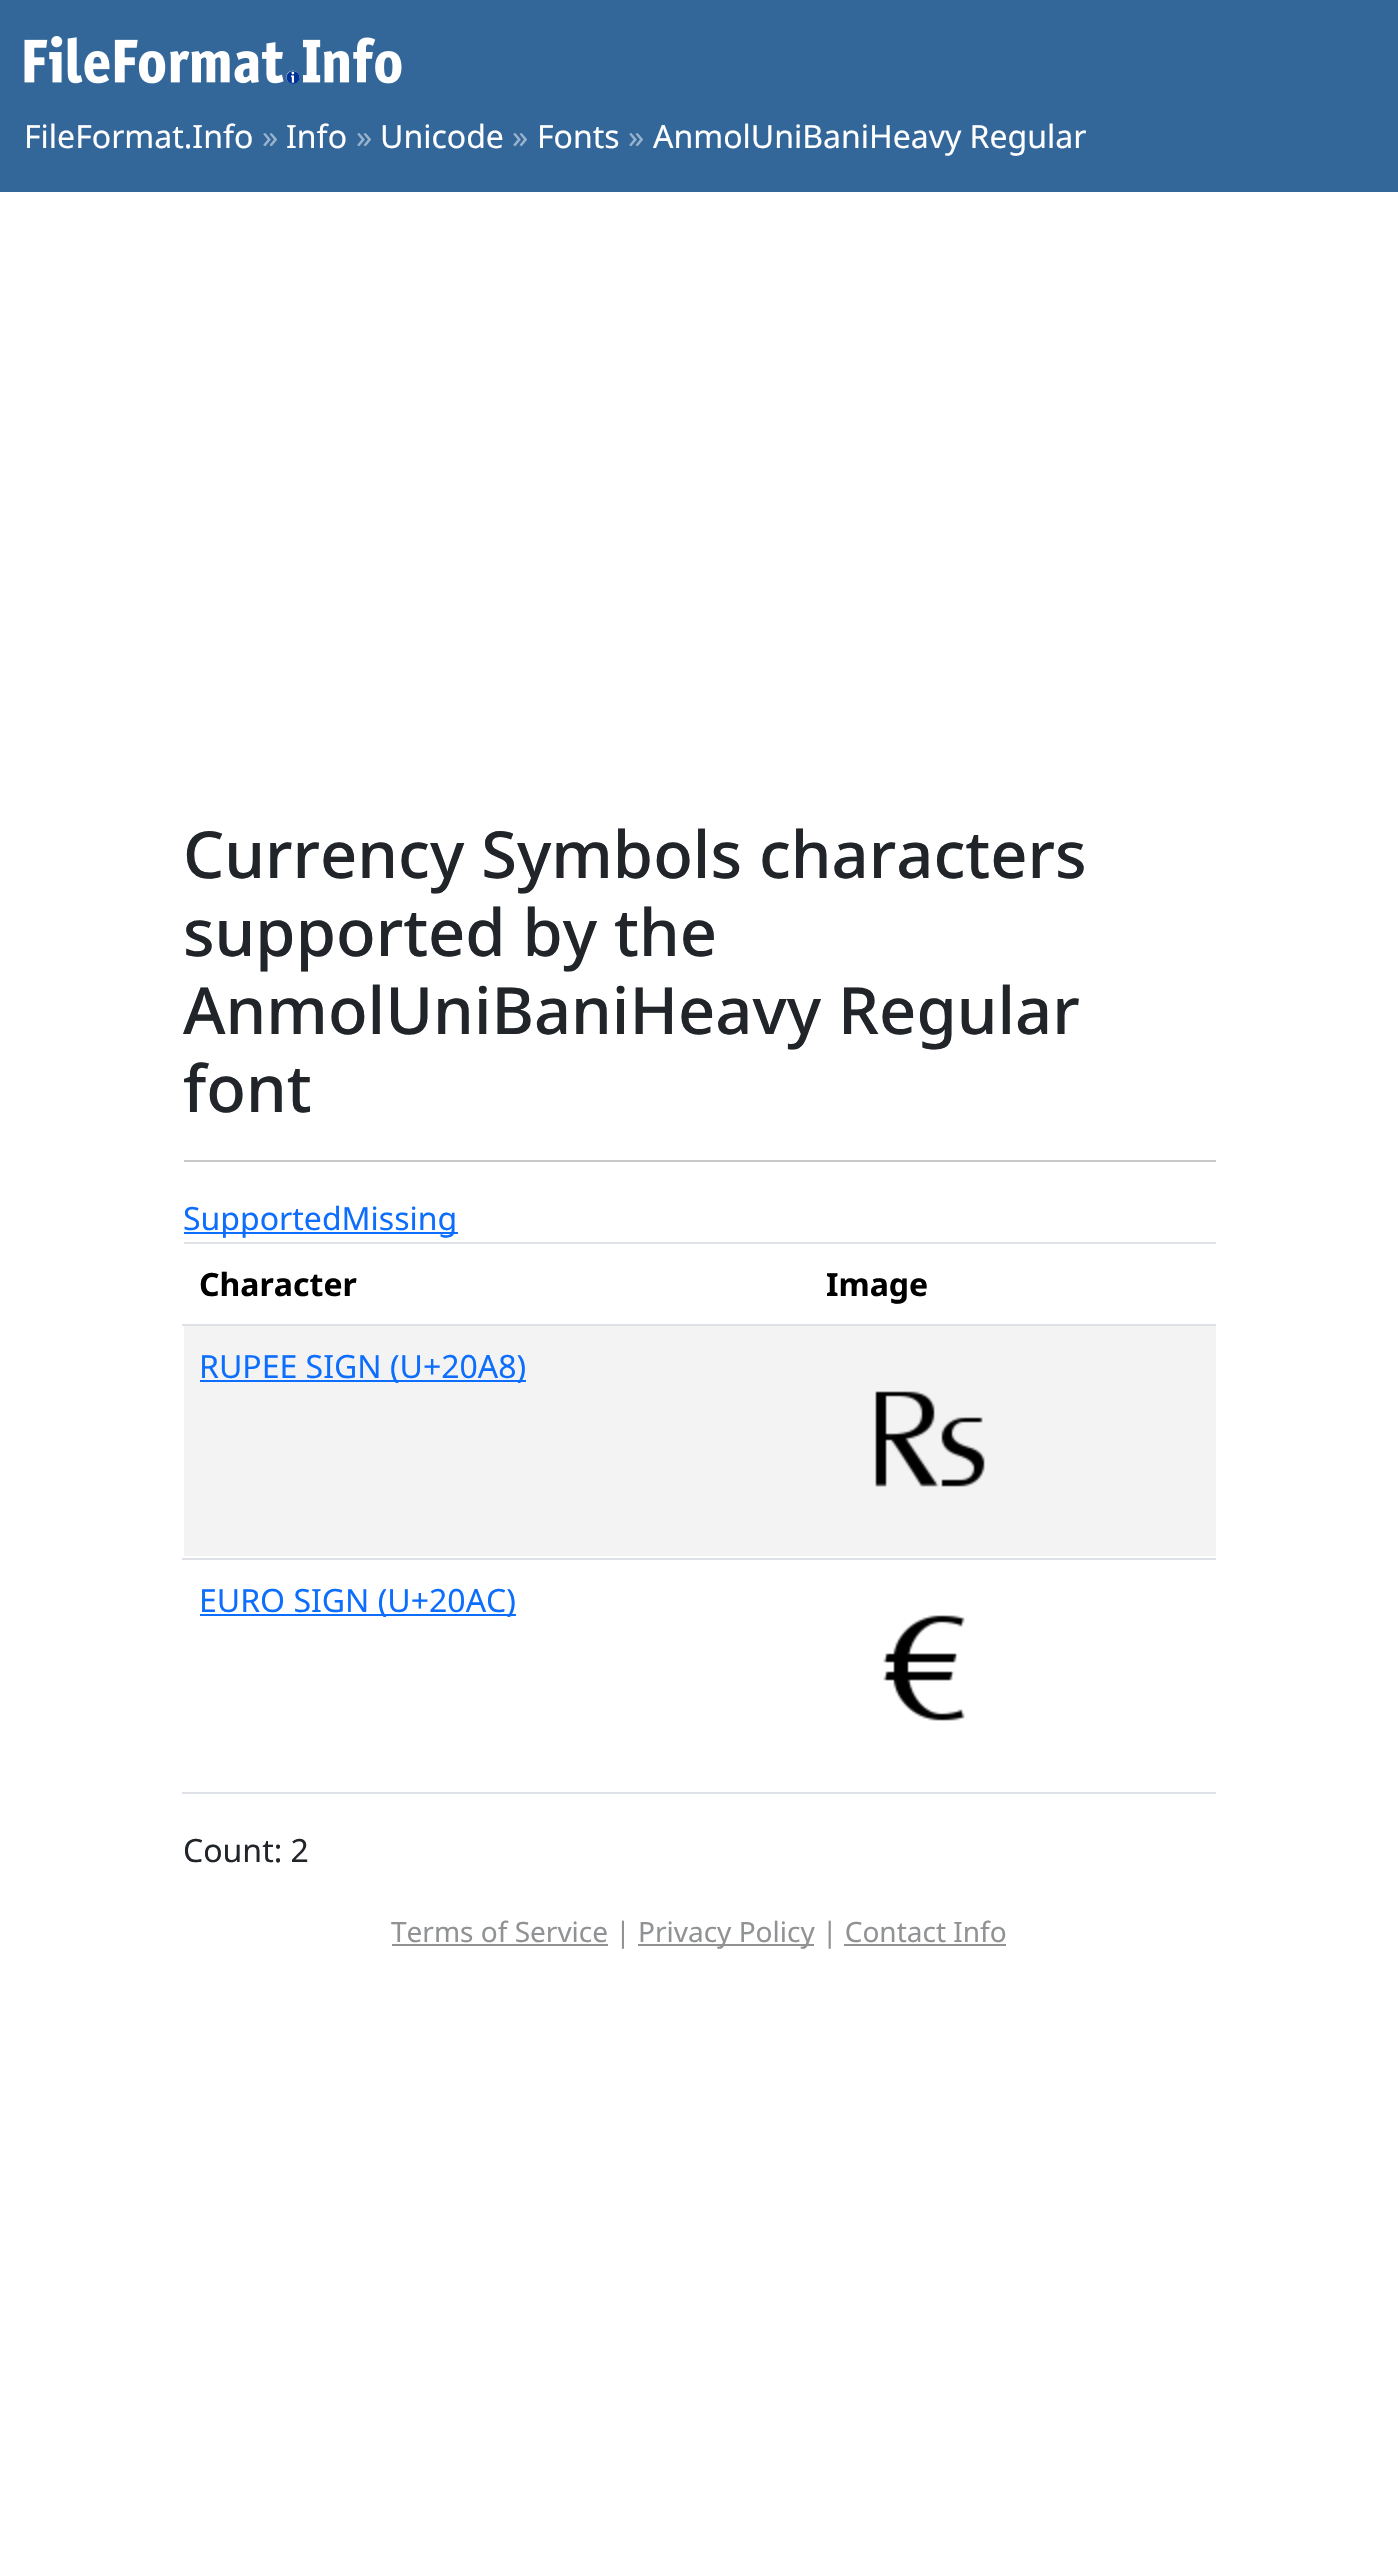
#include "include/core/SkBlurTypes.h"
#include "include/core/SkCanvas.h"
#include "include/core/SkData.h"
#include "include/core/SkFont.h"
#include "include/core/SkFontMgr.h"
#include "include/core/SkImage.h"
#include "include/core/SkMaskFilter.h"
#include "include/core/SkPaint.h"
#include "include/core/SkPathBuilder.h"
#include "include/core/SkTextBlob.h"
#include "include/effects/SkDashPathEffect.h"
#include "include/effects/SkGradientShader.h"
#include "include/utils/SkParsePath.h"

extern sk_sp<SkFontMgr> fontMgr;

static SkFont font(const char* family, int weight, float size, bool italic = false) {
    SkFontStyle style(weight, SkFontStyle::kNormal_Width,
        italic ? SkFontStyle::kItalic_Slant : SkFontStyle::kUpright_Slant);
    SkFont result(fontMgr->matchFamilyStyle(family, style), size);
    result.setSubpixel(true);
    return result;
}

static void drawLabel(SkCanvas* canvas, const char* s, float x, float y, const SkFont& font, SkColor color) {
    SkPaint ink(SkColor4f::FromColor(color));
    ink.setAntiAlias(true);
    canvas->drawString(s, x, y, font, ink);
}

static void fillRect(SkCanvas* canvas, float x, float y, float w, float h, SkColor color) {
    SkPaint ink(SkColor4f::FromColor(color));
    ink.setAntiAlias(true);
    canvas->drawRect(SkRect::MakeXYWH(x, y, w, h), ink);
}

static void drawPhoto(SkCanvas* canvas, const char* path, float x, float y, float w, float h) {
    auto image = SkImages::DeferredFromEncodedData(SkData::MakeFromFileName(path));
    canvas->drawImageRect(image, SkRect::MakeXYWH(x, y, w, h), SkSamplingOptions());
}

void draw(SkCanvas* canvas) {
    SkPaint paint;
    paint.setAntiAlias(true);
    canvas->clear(0xFFFFFFFF);
    fillRect(canvas, 0, 0, 1398, 192, 0xFF336699);
    drawPhoto(canvas, "assets/img1.png", 24, 36, 378, 48);
    SkFont font1 = font("Noto Sans", 400, 32);
    drawLabel(canvas, "FileFormat.Info", 24, 148, font1, 0xFFFFFFFF);
    drawLabel(canvas, "»", 262, 148, font1, 0xFF99B3CC);
    drawLabel(canvas, "Info", 286, 148, font1, 0xFFFFFFFF);
    drawLabel(canvas, "»", 356, 148, font1, 0xFF99B3CC);
    drawLabel(canvas, "Unicode", 380, 148, font1, 0xFFFFFFFF);
    drawLabel(canvas, "»", 512, 148, font1, 0xFF99B3CC);
    drawLabel(canvas, "Fonts", 537, 148, font1, 0xFFFFFFFF);
    drawLabel(canvas, "»", 628, 148, font1, 0xFF99B3CC);
    drawLabel(canvas, "AnmolUniBaniHeavy Regular", 653, 148, font1, 0xFFFFFFFF);
    SkFont font2 = font("Noto Sans", 500, 65);
    drawLabel(canvas, "Currency Symbols characters", 183, 878, font2, 0xFF212529);
    drawLabel(canvas, "supported by the", 183, 956, font2, 0xFF212529);
    drawLabel(canvas, "AnmolUniBaniHeavy Regular", 183, 1034, font2, 0xFF212529);
    drawLabel(canvas, "font", 183, 1112, font2, 0xFF212529);
    fillRect(canvas, 184, 1160, 1032, 2, 0xFFC8C9CA);
    fillRect(canvas, 184, 1242, 1032, 2, 0xFFDEE2E6);
    fillRect(canvas, 184, 1232, 274, 2, 0xFF0D6EFD);
    drawLabel(canvas, "SupportedMissing", 183, 1230, font1, 0xFF0D6EFD);
    SkFont font3 = font("Noto Sans", 700, 32);
    drawLabel(canvas, "Character", 199, 1296, font3, 0xFF000000);
    fillRect(canvas, 182, 1324, 1034, 2, 0xFFDEE2E6);
    drawLabel(canvas, "Image", 826, 1296, font3, 0xFF000000);
    fillRect(canvas, 184, 1326, 1032, 230, 0xFFF3F3F3);
    fillRect(canvas, 200, 1380, 326, 2, 0xFF0D6EFD);
    drawLabel(canvas, "RUPEE SIGN (U+20A8)", 199, 1378, font1, 0xFF0D6EFD);
    fillRect(canvas, 182, 1558, 1034, 2, 0xFFDEE2E6);
    drawPhoto(canvas, "assets/img2.png", 875, 1391, 110, 96);
    fillRect(canvas, 200, 1614, 316, 2, 0xFF0D6EFD);
    drawLabel(canvas, "EURO SIGN (U+20AC)", 199, 1612, font1, 0xFF0D6EFD);
    fillRect(canvas, 182, 1792, 1034, 2, 0xFFDEE2E6);
    drawPhoto(canvas, "assets/img3.png", 883, 1615, 82, 106);
    drawLabel(canvas, "Count: 2", 183, 1862, font1, 0xFF212529);
    fillRect(canvas, 392, 1944, 216, 2, 0xFF909294);
    SkFont font4 = font("Noto Sans", 400, 28);
    drawLabel(canvas, "Terms of Service |", 391, 1942, font4, 0xFF909294);
    fillRect(canvas, 638, 1944, 176, 2, 0xFF909294);
    drawLabel(canvas, "Privacy Policy", 638, 1942, font4, 0xFF909294);
    drawLabel(canvas, "| Contact Info", 822, 1942, font4, 0xFF909294);
    fillRect(canvas, 844, 1944, 162, 2, 0xFF909294);
}
